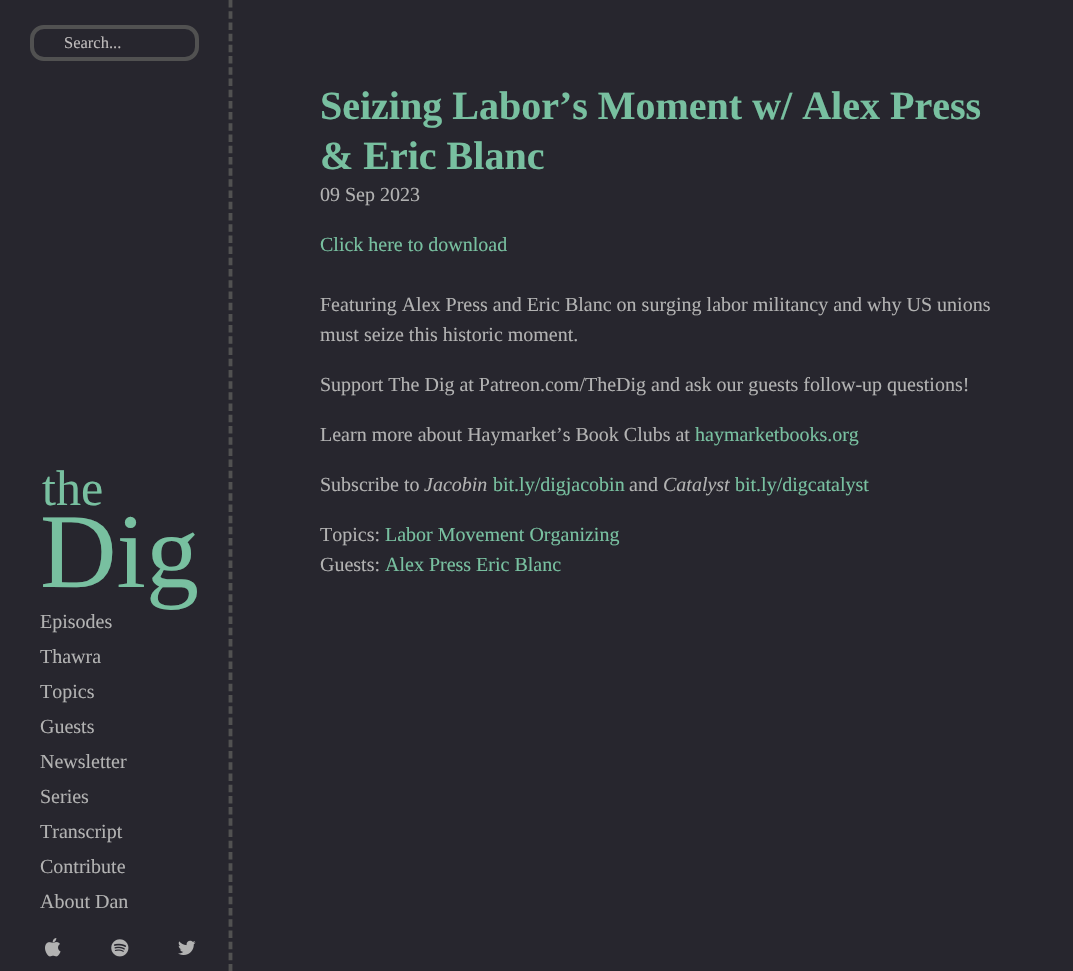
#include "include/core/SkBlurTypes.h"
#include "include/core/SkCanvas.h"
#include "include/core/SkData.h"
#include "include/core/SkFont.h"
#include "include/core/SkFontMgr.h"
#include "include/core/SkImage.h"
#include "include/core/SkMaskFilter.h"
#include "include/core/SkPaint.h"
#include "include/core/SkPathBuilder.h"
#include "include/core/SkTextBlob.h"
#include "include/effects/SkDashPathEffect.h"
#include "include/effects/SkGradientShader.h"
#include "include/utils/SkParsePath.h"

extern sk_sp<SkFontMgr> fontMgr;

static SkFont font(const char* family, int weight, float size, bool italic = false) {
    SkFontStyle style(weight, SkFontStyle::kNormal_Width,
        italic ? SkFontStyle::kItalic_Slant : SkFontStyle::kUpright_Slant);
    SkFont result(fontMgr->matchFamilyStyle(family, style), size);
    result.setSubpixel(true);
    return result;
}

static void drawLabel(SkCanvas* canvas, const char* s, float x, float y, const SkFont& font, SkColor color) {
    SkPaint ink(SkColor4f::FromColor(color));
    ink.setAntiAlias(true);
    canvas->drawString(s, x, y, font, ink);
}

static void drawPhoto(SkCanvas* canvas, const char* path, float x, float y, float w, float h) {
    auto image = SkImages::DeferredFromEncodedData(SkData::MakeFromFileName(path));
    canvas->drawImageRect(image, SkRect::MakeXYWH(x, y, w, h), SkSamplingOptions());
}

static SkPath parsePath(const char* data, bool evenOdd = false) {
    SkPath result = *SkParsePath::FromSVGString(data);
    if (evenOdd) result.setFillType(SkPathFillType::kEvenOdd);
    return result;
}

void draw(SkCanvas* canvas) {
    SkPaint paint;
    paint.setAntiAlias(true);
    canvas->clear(0xFF27262E);
    paint.setStroke(true);
    paint.setStrokeWidth(3.8f);
    paint.setColor(0xFF515151);
    paint.setPathEffect(SkDashPathEffect::Make({{7.5f, 3.71f}}, 0));
    canvas->drawPath(parsePath("M230.5 0V971"), paint);
    paint.setPathEffect(nullptr);
    paint.setStrokeWidth(4);
    canvas->drawRoundRect(SkRect::MakeXYWH(32, 27, 165, 32), 12, 12, paint);
    SkFont font1 = font("Liberation Serif", 400, 16.5f);
    drawLabel(canvas, "Search...", 64, 48, font1, 0xFFBEBBBB);
    SkFont font2 = font("Liberation Serif", 400, 50);
    drawLabel(canvas, "the", 42, 505, font2, 0xFF78C0A0);
    SkFont font3 = font("Liberation Serif", 400, 106);
    drawLabel(canvas, "Dig", 40, 587, font3, 0xFF78C0A0);
    SkFont font4 = font("Liberation Serif", 400, 20);
    drawLabel(canvas, "Episodes", 40, 628, font4, 0xFFB2B2B2);
    drawLabel(canvas, "Thawra", 40, 663, font4, 0xFFB2B2B2);
    drawLabel(canvas, "Topics", 40, 698, font4, 0xFFB2B2B2);
    drawLabel(canvas, "Guests", 40, 733, font4, 0xFFB2B2B2);
    drawLabel(canvas, "Newsletter", 40, 768, font4, 0xFFB2B2B2);
    drawLabel(canvas, "Series", 40, 803, font4, 0xFFB2B2B2);
    drawLabel(canvas, "Transcript", 40, 838, font4, 0xFFB2B2B2);
    drawLabel(canvas, "Contribute", 40, 873, font4, 0xFFB2B2B2);
    drawLabel(canvas, "About Dan", 40, 908, font4, 0xFFB2B2B2);
    drawPhoto(canvas, "assets/img1.png", 45, 938, 16, 19);
    drawPhoto(canvas, "assets/img2.png", 111, 939, 18, 18);
    drawPhoto(canvas, "assets/img3.png", 178, 940, 18, 15);
    SkFont font5 = font("Liberation Serif", 700, 40);
    drawLabel(canvas, "Seizing Labor’s Moment w/ Alex Press", 320, 119, font5, 0xFF78C0A0);
    drawLabel(canvas, "& Eric Blanc", 320, 169, font5, 0xFF78C0A0);
    drawLabel(canvas, "09 Sep 2023", 320, 201, font4, 0xFFB2B2B2);
    drawLabel(canvas, "Click here to download", 320, 251, font4, 0xFF78C0A0);
    drawLabel(canvas, "Featuring Alex Press and Eric Blanc on surging labor militancy and why US unions", 320, 311, font4, 0xFFB2B2B2);
    drawLabel(canvas, "must seize this historic moment.", 320, 341, font4, 0xFFB2B2B2);
    drawLabel(canvas, "Support The Dig at Patreon.com/TheDig and ask our guests follow-up questions!", 320, 391, font4, 0xFFB2B2B2);
    drawLabel(canvas, "Learn more about Haymarket’s Book Clubs at", 320, 441, font4, 0xFFB2B2B2);
    drawLabel(canvas, "haymarketbooks.org", 695, 441, font4, 0xFF78C0A0);
    drawLabel(canvas, "Subscribe to", 320, 491, font4, 0xFFB2B2B2);
    SkFont font6 = font("Liberation Serif", 400, 20, true);
    drawLabel(canvas, "Jacobin", 424, 491, font6, 0xFFB2B2B2);
    drawLabel(canvas, "bit.ly/digjacobin", 493, 491, font4, 0xFF78C0A0);
    drawLabel(canvas, "and", 629, 491, font4, 0xFFB2B2B2);
    drawLabel(canvas, "Catalyst", 663, 491, font6, 0xFFB2B2B2);
    drawLabel(canvas, "bit.ly/digcatalyst", 735, 491, font4, 0xFF78C0A0);
    drawLabel(canvas, "Topics:", 320, 541, font4, 0xFFB2B2B2);
    drawLabel(canvas, "Labor Movement Organizing", 385, 541, font4, 0xFF78C0A0);
    drawLabel(canvas, "Guests:", 320, 571, font4, 0xFFB2B2B2);
    drawLabel(canvas, "Alex Press Eric Blanc", 385, 571, font4, 0xFF78C0A0);
}
